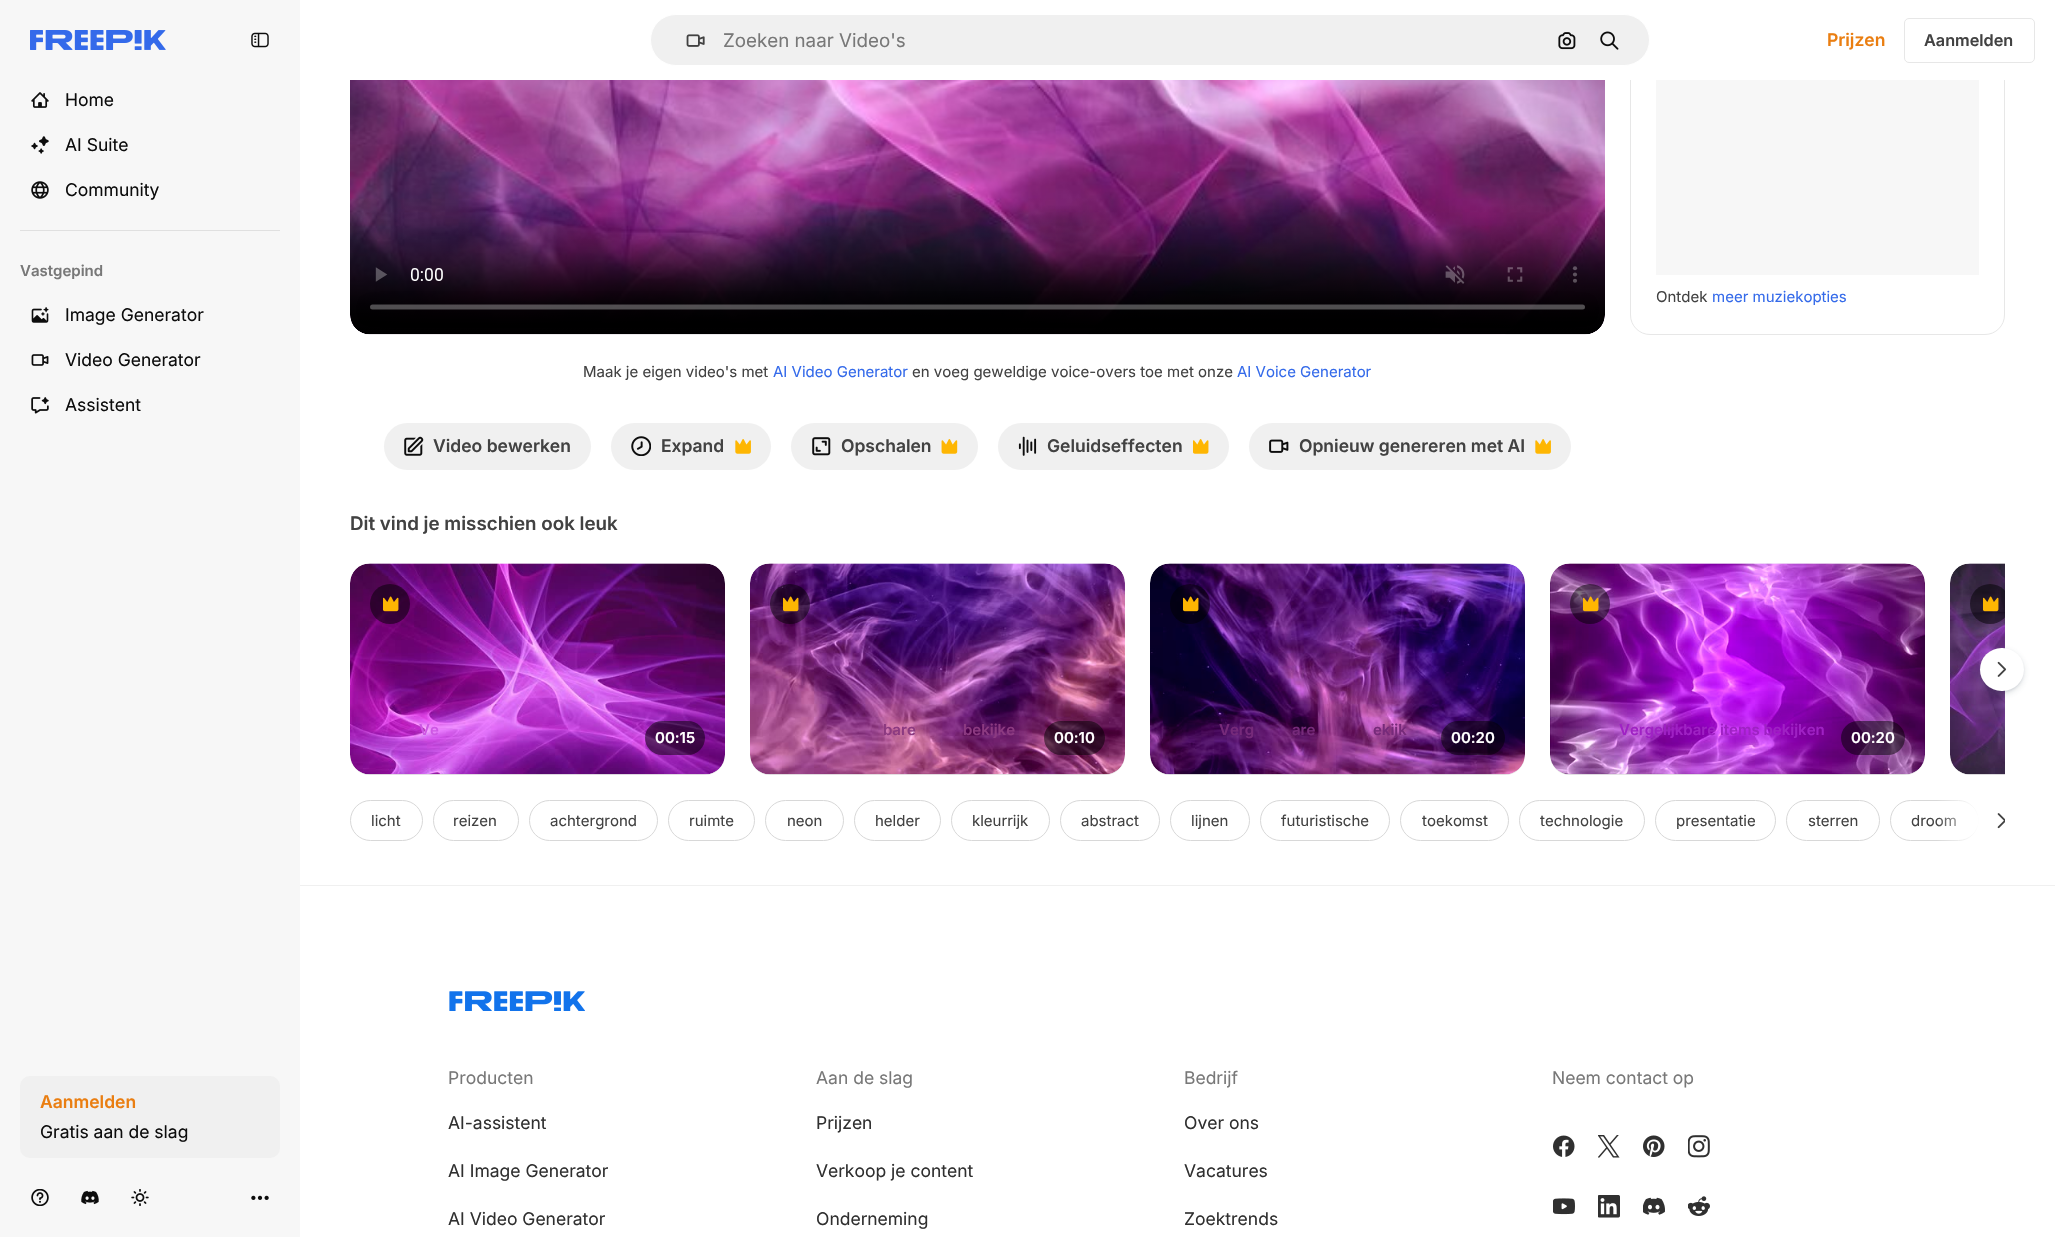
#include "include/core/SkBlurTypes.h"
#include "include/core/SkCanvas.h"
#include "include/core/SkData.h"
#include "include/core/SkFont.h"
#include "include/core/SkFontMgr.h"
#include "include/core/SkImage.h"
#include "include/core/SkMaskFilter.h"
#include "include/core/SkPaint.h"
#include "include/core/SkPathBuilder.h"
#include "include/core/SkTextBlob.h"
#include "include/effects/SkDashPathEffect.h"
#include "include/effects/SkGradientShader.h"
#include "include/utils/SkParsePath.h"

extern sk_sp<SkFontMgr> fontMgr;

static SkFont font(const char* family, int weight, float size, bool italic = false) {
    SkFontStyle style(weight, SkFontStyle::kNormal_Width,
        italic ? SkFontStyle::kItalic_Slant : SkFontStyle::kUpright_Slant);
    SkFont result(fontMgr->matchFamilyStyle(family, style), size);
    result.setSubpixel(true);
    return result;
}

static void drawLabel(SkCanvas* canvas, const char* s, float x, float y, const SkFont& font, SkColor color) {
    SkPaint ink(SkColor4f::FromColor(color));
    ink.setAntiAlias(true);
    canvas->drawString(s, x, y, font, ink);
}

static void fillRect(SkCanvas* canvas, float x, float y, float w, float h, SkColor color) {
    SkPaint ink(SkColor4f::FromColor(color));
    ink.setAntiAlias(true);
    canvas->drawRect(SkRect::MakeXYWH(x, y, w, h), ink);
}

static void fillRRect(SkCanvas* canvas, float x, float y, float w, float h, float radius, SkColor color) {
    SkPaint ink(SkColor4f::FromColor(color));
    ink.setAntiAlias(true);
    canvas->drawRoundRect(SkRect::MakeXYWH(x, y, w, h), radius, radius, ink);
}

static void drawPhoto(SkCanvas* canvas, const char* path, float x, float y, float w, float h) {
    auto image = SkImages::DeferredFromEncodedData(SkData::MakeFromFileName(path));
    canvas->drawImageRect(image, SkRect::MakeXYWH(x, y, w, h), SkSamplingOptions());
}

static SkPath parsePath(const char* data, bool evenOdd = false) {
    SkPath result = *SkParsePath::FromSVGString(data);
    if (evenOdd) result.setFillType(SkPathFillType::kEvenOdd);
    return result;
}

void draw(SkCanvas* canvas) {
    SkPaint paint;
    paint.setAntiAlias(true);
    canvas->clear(0xFFFFFFFF);
    fillRect(canvas, 0, 0, 300, 1237, 0xFFF7F7F7);
    drawPhoto(canvas, "assets/img1.png", 30, 30, 136, 20);
    drawPhoto(canvas, "assets/img2.png", 251, 32, 18, 16);
    drawPhoto(canvas, "assets/img3.png", 31, 92, 18, 16);
    SkFont font1 = font("Inter", 400, 17.5f);
    drawLabel(canvas, "Home", 65, 106, font1, 0xFF0D0D0D);
    drawPhoto(canvas, "assets/img4.png", 31, 136, 18, 18);
    drawLabel(canvas, "AI Suite", 65, 151, font1, 0xFF0D0D0D);
    drawPhoto(canvas, "assets/img5.png", 31, 181, 18, 18);
    drawLabel(canvas, "Community", 65, 196, font1, 0xFF0D0D0D);
    fillRect(canvas, 20, 230, 260, 1, 0xFFE0E0E0);
    SkFont font2 = font("Inter", 600, 15);
    drawLabel(canvas, "Vastgepind", 20, 276, font2, 0xFF787878);
    drawPhoto(canvas, "assets/img6.png", 31, 307, 18, 16);
    drawLabel(canvas, "Image Generator", 65, 321, font1, 0xFF0D0D0D);
    drawPhoto(canvas, "assets/img7.png", 31, 354, 18, 12);
    drawLabel(canvas, "Video Generator", 65, 366, font1, 0xFF0D0D0D);
    drawPhoto(canvas, "assets/img8.png", 31, 397, 18, 17);
    drawLabel(canvas, "Assistent", 65, 411, font1, 0xFF0D0D0D);
    fillRRect(canvas, 20, 1076, 260, 82, 10, 0xFFF0F0F0);
    SkFont font3 = font("Inter", 600, 17.5f);
    drawLabel(canvas, "Aanmelden", 40, 1108, font3, 0xFFEA7E11);
    drawLabel(canvas, "Gratis aan de slag", 40, 1138, font1, 0xFF0D0D0D);
    drawPhoto(canvas, "assets/img9.png", 31, 1189, 18, 17);
    drawPhoto(canvas, "assets/img10.png", 81, 1190, 18, 15);
    drawPhoto(canvas, "assets/img11.png", 131, 1189, 18, 17);
    drawPhoto(canvas, "assets/img12.png", 251, 1195, 18, 5);
    paint.setStroke(true);
    paint.setStrokeWidth(1);
    paint.setColor(0xFFE7E7E7);
    canvas->drawRoundRect(SkRect::MakeXYWH(1630.5f, -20.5f, 374, 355), 19.5f, 19.5f, paint);
    fillRect(canvas, 1630, 0, 375, 80, 0xFFFFFFFF);
    paint.setStroke(false);
    paint.setColor(0xFFF0F0F0);
    canvas->drawRoundRect(SkRect::MakeXYWH(650.5f, 14.5f, 999, 51), 25.5f, 25.5f, paint);
    paint.setStroke(true);
    paint.setColor(0xFFFFFFFF);
    canvas->drawRoundRect(SkRect::MakeXYWH(650.5f, 14.5f, 999, 51), 25.5f, 25.5f, paint);
    drawPhoto(canvas, "assets/img13.png", 686, 34, 19, 13);
    SkFont font4 = font("Inter", 400, 18.75f);
    drawLabel(canvas, "Zoeken naar Video's", 723, 47, font4, 0xFF787878);
    drawPhoto(canvas, "assets/img14.png", 1558, 32, 18, 18);
    drawPhoto(canvas, "assets/img15.png", 1600, 31, 19, 19);
    drawLabel(canvas, "Prijzen", 1827, 46, font3, 0xFFEA7E11);
    paint.setColor(0xFFE7E7E7);
    canvas->drawRoundRect(SkRect::MakeXYWH(1904.5f, 18.5f, 130, 44), 4.5f, 4.5f, paint);
    SkFont font5 = font("Inter", 600, 16.25f);
    drawLabel(canvas, "Aanmelden", 1924, 46, font5, 0xFF424242);
    drawPhoto(canvas, "assets/img16.png", 350, 80, 1255, 255);
    fillRect(canvas, 1656, 80, 323, 195, 0xFFF7F7F7);
    SkFont font6 = font("Inter", 400, 15);
    drawLabel(canvas, "Ontdek", 1656, 302, font6, 0xFF424242);
    drawLabel(canvas, "meer muziekopties", 1712, 302, font6, 0xFF346AEA);
    drawLabel(canvas, "Maak je eigen video's met", 583, 377, font6, 0xFF424242);
    drawLabel(canvas, "AI Video Generator", 773, 377, font6, 0xFF346AEA);
    drawLabel(canvas, "en voeg geweldige voice-overs toe met onze", 912, 377, font6, 0xFF424242);
    drawLabel(canvas, "AI Voice Generator", 1237, 377, font6, 0xFF346AEA);
    fillRRect(canvas, 384, 423, 207, 47, 23.5f, 0xFFF0F0F0);
    drawPhoto(canvas, "assets/img17.png", 404, 436, 20, 20);
    drawLabel(canvas, "Video bewerken", 433, 452, font3, 0xFF424242);
    fillRRect(canvas, 611, 423, 160, 47, 23.5f, 0xFFF0F0F0);
    drawPhoto(canvas, "assets/img18.png", 631, 436, 20, 20);
    drawLabel(canvas, "Expand", 661, 452, font3, 0xFF424242);
    drawPhoto(canvas, "assets/img19.png", 735, 439, 16, 15);
    fillRRect(canvas, 791, 423, 187, 47, 23.5f, 0xFFF0F0F0);
    drawPhoto(canvas, "assets/img20.png", 812, 437, 19, 19);
    drawLabel(canvas, "Opschalen", 841, 452, font3, 0xFF424242);
    drawPhoto(canvas, "assets/img21.png", 941, 439, 17, 15);
    fillRRect(canvas, 998, 423, 231, 47, 23.5f, 0xFFF0F0F0);
    drawPhoto(canvas, "assets/img22.png", 1018, 436, 19, 20);
    drawLabel(canvas, "Geluidseffecten", 1047, 452, font3, 0xFF424242);
    drawPhoto(canvas, "assets/img23.png", 1193, 439, 16, 15);
    fillRRect(canvas, 1249, 423, 322, 47, 23.5f, 0xFFF0F0F0);
    drawPhoto(canvas, "assets/img24.png", 1269, 439, 20, 14);
    drawLabel(canvas, "Opnieuw genereren met AI", 1299, 452, font3, 0xFF424242);
    drawPhoto(canvas, "assets/img19.png", 1535, 439, 16, 15);
    SkFont font7 = font("Inter", 600, 18.75f);
    drawLabel(canvas, "Dit vind je misschien ook leuk", 350, 530, font7, 0xFF424242);
    paint.setStroke(false);
    paint.setColor(0xFFE6E6E6);
    canvas->drawPath(parsePath("M1970 564H2005V775H1970C1959 775 1950 766 1950 755V584C1950 573 1959 564 1970 564Z"), paint);
    drawPhoto(canvas, "assets/img34.png", 1950, 563, 55, 212);
    paint.setColor(0x26374957);
    paint.setMaskFilter(SkMaskFilter::MakeBlur(kNormal_SkBlurStyle, 3));
    canvas->drawRoundRect(SkRect::MakeXYWH(1980, 650, 44, 44), 22, 22, paint);
    paint.setMaskFilter(nullptr);
    paint.setColor(0x1A374957);
    paint.setMaskFilter(SkMaskFilter::MakeBlur(kNormal_SkBlurStyle, 1));
    canvas->drawRoundRect(SkRect::MakeXYWH(1980, 649, 44, 44), 22, 22, paint);
    paint.setMaskFilter(nullptr);
    fillRRect(canvas, 1980, 648, 44, 43, 21.5f, 0xFFFFFFFF);
    drawPhoto(canvas, "assets/img25.png", 1997, 661, 10, 16);
    fillRRect(canvas, 350, 564, 375, 211, 20, 0xFFE6E6E6);
    drawPhoto(canvas, "assets/img27.png", 350, 563, 375, 212);
    paint.setColor(0x80000000);
    canvas->drawCircle(390, 604, 20, paint);
    drawPhoto(canvas, "assets/img26.png", 383, 596, 16, 16);
    drawLabel(canvas, "Ve", 419, 735, font2, 0xFFCE57E5);
    fillRRect(canvas, 645, 721, 60, 34, 17, 0x80000000);
    drawLabel(canvas, "00:15", 655, 743, font2, 0xFFFFFFFF);
    fillRRect(canvas, 750, 564, 375, 211, 20, 0xFFE6E6E6);
    drawPhoto(canvas, "assets/img29.png", 750, 563, 375, 212);
    canvas->drawCircle(790, 604, 20, paint);
    drawPhoto(canvas, "assets/img28.png", 783, 596, 16, 16);
    drawLabel(canvas, "bare", 883, 735, font2, 0xFF8C3A81);
    drawLabel(canvas, "bekijke", 963, 735, font2, 0xFF8C3A81);
    fillRRect(canvas, 1044, 721, 61, 34, 17, 0x80000000);
    drawLabel(canvas, "00:10", 1054, 743, font2, 0xFFFFFFFF);
    fillRRect(canvas, 1150, 564, 375, 211, 20, 0xFFE6E6E6);
    drawPhoto(canvas, "assets/img31.png", 1150, 563, 375, 212);
    canvas->drawCircle(1190, 604, 20, paint);
    drawPhoto(canvas, "assets/img30.png", 1183, 596, 16, 16);
    drawLabel(canvas, "Verg", 1219, 735, font2, 0xFF762A7A);
    drawLabel(canvas, "are", 1292, 735, font2, 0xFF762A7A);
    drawLabel(canvas, "ekijk", 1373, 735, font2, 0xFF762A7A);
    fillRRect(canvas, 1441, 721, 64, 34, 17, 0x80000000);
    drawLabel(canvas, "00:20", 1451, 743, font2, 0xFFFFFFFF);
    fillRRect(canvas, 1550, 564, 375, 211, 20, 0xFFE6E6E6);
    drawPhoto(canvas, "assets/img33.png", 1550, 563, 375, 212);
    canvas->drawCircle(1590, 604, 20, paint);
    drawPhoto(canvas, "assets/img32.png", 1583, 596, 16, 16);
    drawLabel(canvas, "Vergelijkbare items bekijken", 1619, 735, font2, 0xFF9F21C4);
    fillRRect(canvas, 1841, 721, 64, 34, 17, 0x80000000);
    drawLabel(canvas, "00:20", 1851, 743, font2, 0xFFFFFFFF);
    canvas->save();
    canvas->clipRect(SkRect::MakeXYWH(350, 564, 1655, 211));
    canvas->drawCircle(1990, 604, 20, paint);
    canvas->restore();
    drawPhoto(canvas, "assets/img35.png", 1983, 596, 16, 16);
    paint.setStroke(true);
    paint.setColor(0xFFD8D8D8);
    canvas->drawRoundRect(SkRect::MakeXYWH(350.5f, 800.5f, 72, 40), 20, 20, paint);
    drawLabel(canvas, "licht", 371, 826, font6, 0xFF424242);
    canvas->drawRoundRect(SkRect::MakeXYWH(433.5f, 800.5f, 85, 40), 20, 20, paint);
    drawLabel(canvas, "reizen", 453, 826, font6, 0xFF424242);
    canvas->drawRoundRect(SkRect::MakeXYWH(529.5f, 800.5f, 128, 40), 20, 20, paint);
    drawLabel(canvas, "achtergrond", 550, 826, font6, 0xFF424242);
    canvas->drawRoundRect(SkRect::MakeXYWH(668.5f, 800.5f, 86, 40), 20, 20, paint);
    drawLabel(canvas, "ruimte", 689, 826, font6, 0xFF424242);
    canvas->drawRoundRect(SkRect::MakeXYWH(765.5f, 800.5f, 78, 40), 20, 20, paint);
    drawLabel(canvas, "neon", 787, 826, font6, 0xFF424242);
    canvas->drawRoundRect(SkRect::MakeXYWH(854.5f, 800.5f, 86, 40), 20, 20, paint);
    drawLabel(canvas, "helder", 875, 826, font6, 0xFF424242);
    canvas->drawRoundRect(SkRect::MakeXYWH(951.5f, 800.5f, 98, 40), 20, 20, paint);
    drawLabel(canvas, "kleurrijk", 972, 826, font6, 0xFF424242);
    canvas->drawRoundRect(SkRect::MakeXYWH(1060.5f, 800.5f, 99, 40), 20, 20, paint);
    drawLabel(canvas, "abstract", 1081, 826, font6, 0xFF424242);
    canvas->drawRoundRect(SkRect::MakeXYWH(1170.5f, 800.5f, 79, 40), 20, 20, paint);
    drawLabel(canvas, "lijnen", 1191, 826, font6, 0xFF424242);
    canvas->drawRoundRect(SkRect::MakeXYWH(1260.5f, 800.5f, 129, 40), 20, 20, paint);
    drawLabel(canvas, "futuristische", 1281, 826, font6, 0xFF424242);
    canvas->drawRoundRect(SkRect::MakeXYWH(1400.5f, 800.5f, 108, 40), 20, 20, paint);
    drawLabel(canvas, "toekomst", 1422, 826, font6, 0xFF424242);
    canvas->drawRoundRect(SkRect::MakeXYWH(1519.5f, 800.5f, 125, 40), 20, 20, paint);
    drawLabel(canvas, "technologie", 1540, 826, font6, 0xFF424242);
    canvas->drawRoundRect(SkRect::MakeXYWH(1655.5f, 800.5f, 120, 40), 20, 20, paint);
    drawLabel(canvas, "presentatie", 1676, 826, font6, 0xFF424242);
    canvas->drawRoundRect(SkRect::MakeXYWH(1786.5f, 800.5f, 93, 40), 20, 20, paint);
    drawLabel(canvas, "sterren", 1808, 826, font6, 0xFF424242);
    canvas->drawRoundRect(SkRect::MakeXYWH(1890.5f, 800.5f, 88, 40), 20, 20, paint);
    drawLabel(canvas, "droom", 1911, 826, font6, 0xFF424242);
    paint.setStroke(false);
    {
        const SkColor colors[] = {0xFFFFFFFF, 0x00FFFFFF};
        const float stops[] = {0, 1};
        const SkPoint ends[] = {{1980, 821}, {1936, 821}};
        paint.setShader(SkGradientShader::MakeLinear(ends, colors, stops, 2, SkTileMode::kClamp));
        paint.setAlpha(255);
    }
    canvas->drawRect(SkRect::MakeXYWH(1937, 800, 42, 41), paint);
    drawPhoto(canvas, "assets/img36.png", 1997, 813, 8, 16);
    fillRect(canvas, 300, 885, 1755, 1, 0xFFF0F0F0);
    drawPhoto(canvas, "assets/img37.png", 449, 991, 136, 20);
    drawLabel(canvas, "Producten", 448, 1084, font1, 0xFF787878);
    drawLabel(canvas, "AI-assistent", 448, 1129, font1, 0xFF303030);
    drawLabel(canvas, "AI Image Generator", 448, 1177, font1, 0xFF303030);
    drawLabel(canvas, "AI Video Generator", 448, 1225, font1, 0xFF303030);
    drawLabel(canvas, "Aan de slag", 816, 1084, font1, 0xFF787878);
    drawLabel(canvas, "Prijzen", 816, 1129, font1, 0xFF303030);
    drawLabel(canvas, "Verkoop je content", 816, 1177, font1, 0xFF303030);
    drawLabel(canvas, "Onderneming", 816, 1225, font1, 0xFF303030);
    drawLabel(canvas, "Bedrijf", 1184, 1084, font1, 0xFF787878);
    drawLabel(canvas, "Over ons", 1184, 1129, font1, 0xFF303030);
    drawLabel(canvas, "Vacatures", 1184, 1177, font1, 0xFF303030);
    drawLabel(canvas, "Zoektrends", 1184, 1225, font1, 0xFF303030);
    drawLabel(canvas, "Neem contact op", 1552, 1084, font1, 0xFF787878);
    drawPhoto(canvas, "assets/img38.png", 1553, 1135, 22, 22);
    drawPhoto(canvas, "assets/img39.png", 1598, 1135, 22, 23);
    drawPhoto(canvas, "assets/img40.png", 1643, 1135, 22, 22);
    drawPhoto(canvas, "assets/img41.png", 1688, 1135, 22, 23);
    drawPhoto(canvas, "assets/img42.png", 1553, 1198, 22, 17);
    drawPhoto(canvas, "assets/img43.png", 1598, 1195, 22, 23);
    drawPhoto(canvas, "assets/img44.png", 1643, 1197, 22, 18);
    drawPhoto(canvas, "assets/img45.png", 1688, 1196, 22, 20);
}
